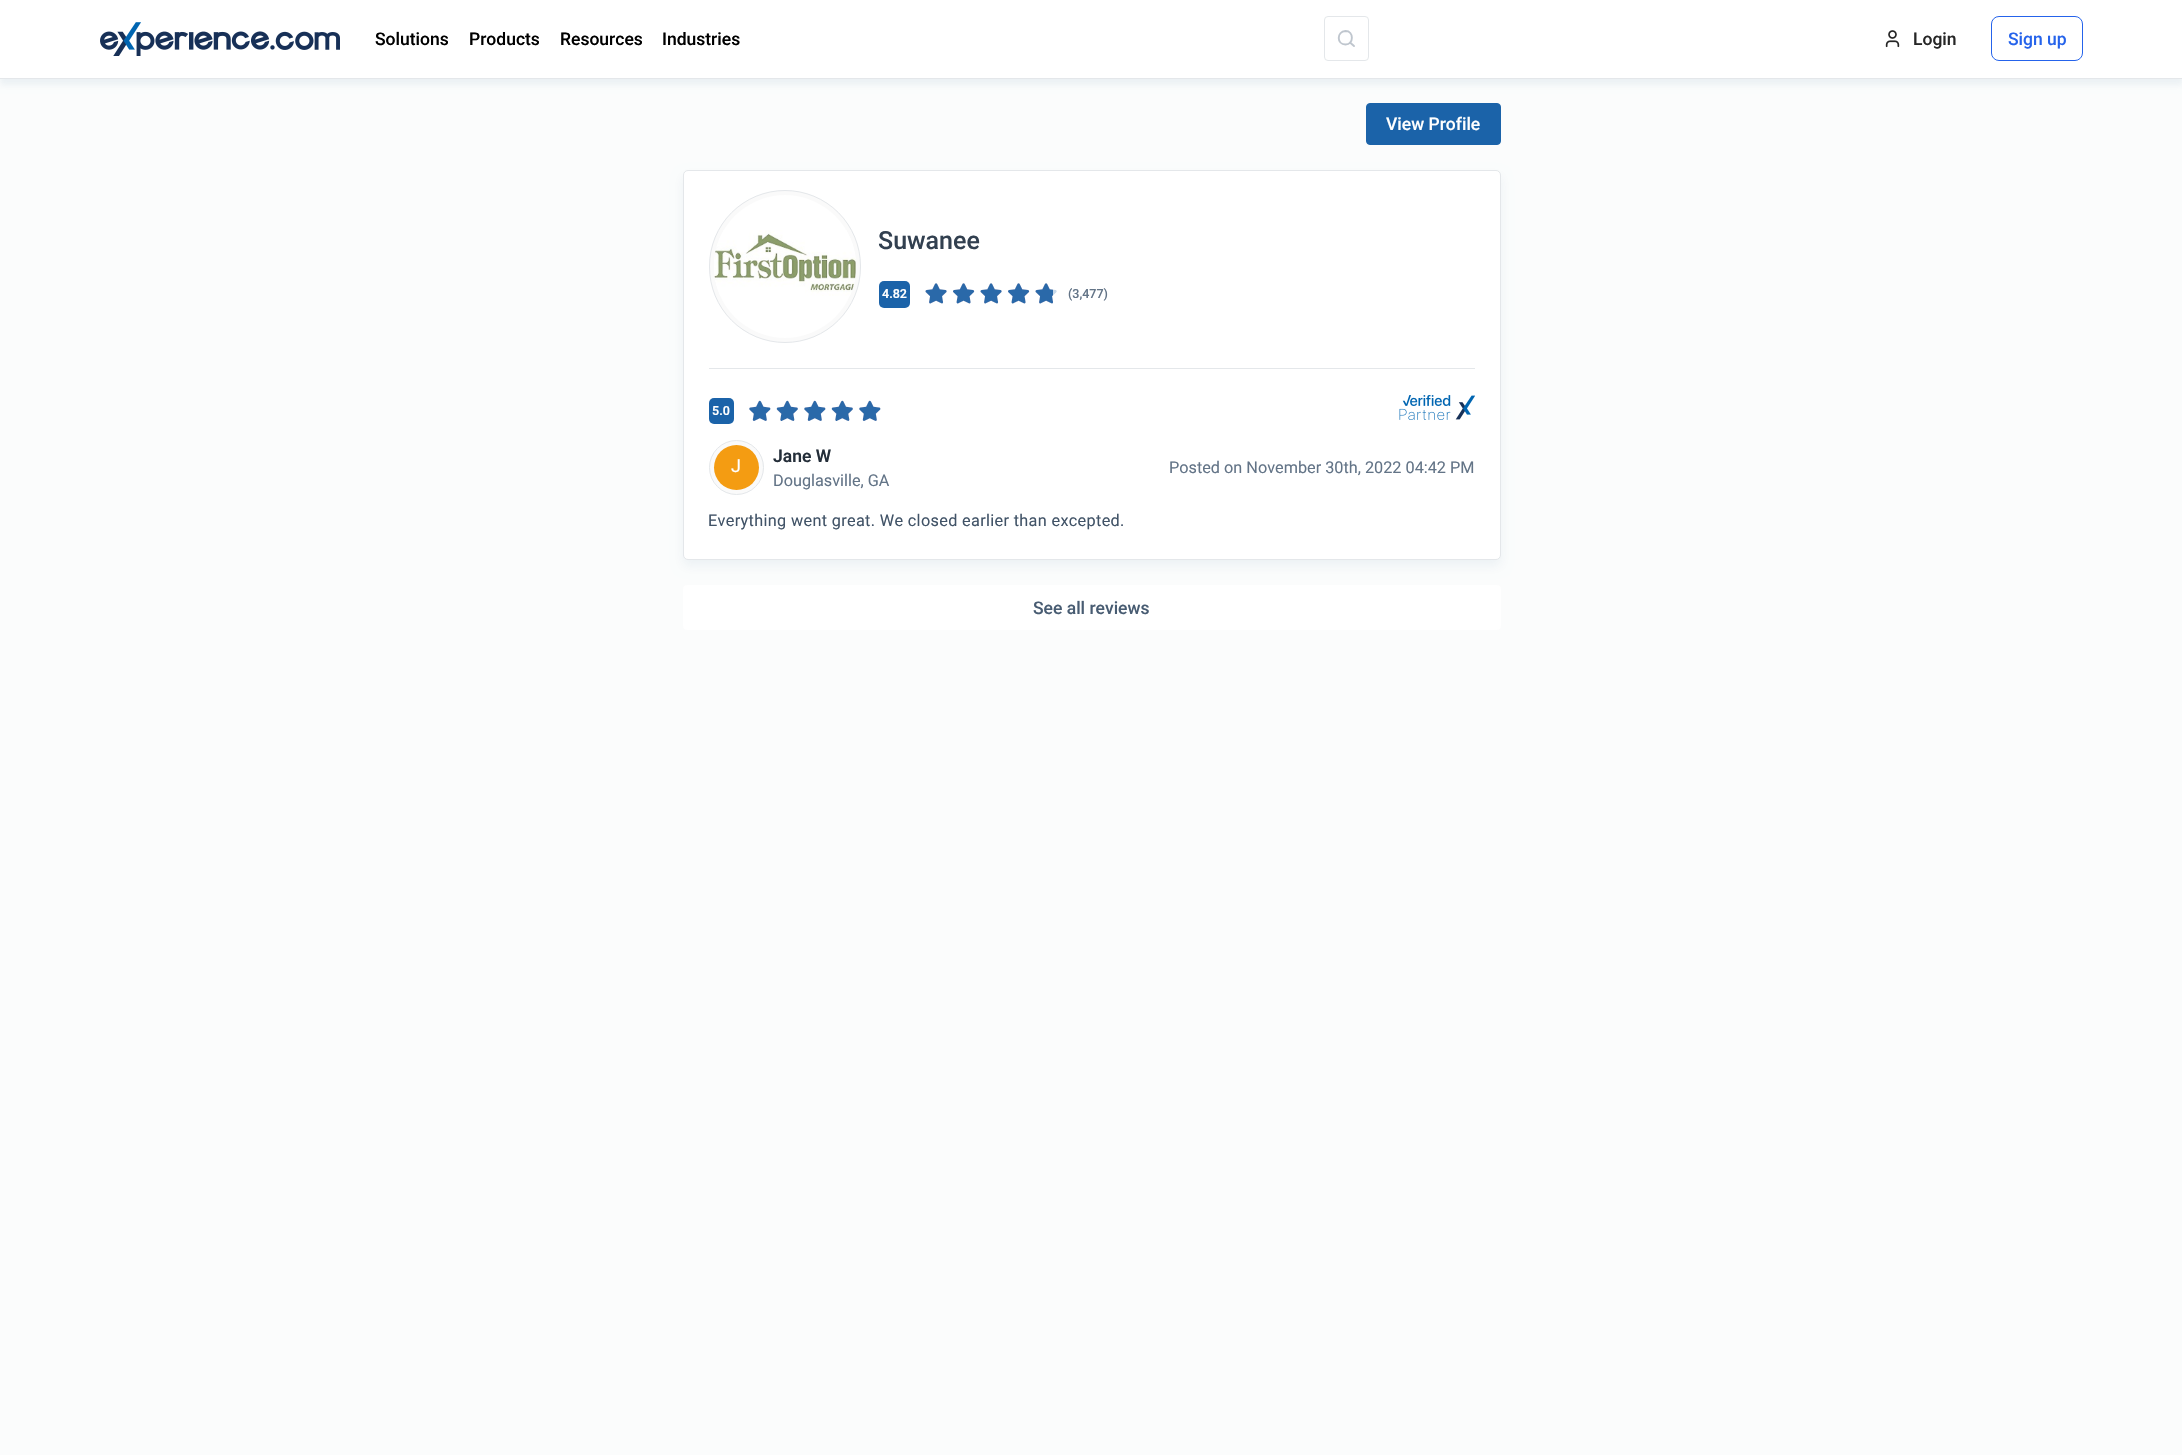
#include "include/core/SkBlurTypes.h"
#include "include/core/SkCanvas.h"
#include "include/core/SkData.h"
#include "include/core/SkFont.h"
#include "include/core/SkFontMgr.h"
#include "include/core/SkImage.h"
#include "include/core/SkMaskFilter.h"
#include "include/core/SkPaint.h"
#include "include/core/SkPathBuilder.h"
#include "include/core/SkTextBlob.h"
#include "include/effects/SkDashPathEffect.h"
#include "include/effects/SkGradientShader.h"
#include "include/utils/SkParsePath.h"

extern sk_sp<SkFontMgr> fontMgr;

static SkFont font(const char* family, int weight, float size, bool italic = false) {
    SkFontStyle style(weight, SkFontStyle::kNormal_Width,
        italic ? SkFontStyle::kItalic_Slant : SkFontStyle::kUpright_Slant);
    SkFont result(fontMgr->matchFamilyStyle(family, style), size);
    result.setSubpixel(true);
    return result;
}

static void drawLabel(SkCanvas* canvas, const char* s, float x, float y, const SkFont& font, SkColor color) {
    SkPaint ink(SkColor4f::FromColor(color));
    ink.setAntiAlias(true);
    canvas->drawString(s, x, y, font, ink);
}

static void drawTracked(SkCanvas* canvas, const char* s, float x, float y, const SkFont& font, const SkPaint& ink, float letter, float word) {
    std::vector<SkGlyphID> glyphs(font.countText(s, strlen(s), SkTextEncoding::kUTF8));
    std::vector<float> xs(glyphs.size());
    font.textToGlyphs(s, strlen(s), SkTextEncoding::kUTF8, glyphs);
    font.getXPos(glyphs, xs, x);
    float extra = 0;
    for (size_t i = 0; i < glyphs.size(); i++) {
        xs[i] += extra;
        extra += letter + word * (glyphs[i] == font.unicharToGlyph(' '));
    }
    canvas->drawTextBlob(SkTextBlob::MakeFromPosHGlyphs(glyphs, xs, y, font), 0, 0, ink);
}

static void fillRect(SkCanvas* canvas, float x, float y, float w, float h, SkColor color) {
    SkPaint ink(SkColor4f::FromColor(color));
    ink.setAntiAlias(true);
    canvas->drawRect(SkRect::MakeXYWH(x, y, w, h), ink);
}

static void fillRRect(SkCanvas* canvas, float x, float y, float w, float h, float radius, SkColor color) {
    SkPaint ink(SkColor4f::FromColor(color));
    ink.setAntiAlias(true);
    canvas->drawRoundRect(SkRect::MakeXYWH(x, y, w, h), radius, radius, ink);
}

static void drawPhoto(SkCanvas* canvas, const char* path, float x, float y, float w, float h) {
    auto image = SkImages::DeferredFromEncodedData(SkData::MakeFromFileName(path));
    canvas->drawImageRect(image, SkRect::MakeXYWH(x, y, w, h), SkSamplingOptions());
}

static SkPath parsePath(const char* data, bool evenOdd = false) {
    SkPath result = *SkParsePath::FromSVGString(data);
    if (evenOdd) result.setFillType(SkPathFillType::kEvenOdd);
    return result;
}

void draw(SkCanvas* canvas) {
    SkPaint paint;
    paint.setAntiAlias(true);
    canvas->clear(0xFFFBFCFC);
    paint.setColor(0x0F00487C);
    paint.setMaskFilter(SkMaskFilter::MakeBlur(kNormal_SkBlurStyle, 3));
    canvas->drawRect(SkRect::MakeXYWH(0, 6, 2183, 79), paint);
    paint.setMaskFilter(nullptr);
    fillRect(canvas, 0, 0, 2182, 78, 0xFFFFFFFF);
    fillRect(canvas, 0, 78, 2182, 1, 0xFFE4E7EA);
    drawPhoto(canvas, "assets/img1.png", 100, 22, 240, 34);
    SkFont font1 = font("Roboto", 500, 17.5f);
    drawLabel(canvas, "Solutions", 375, 45, font1, 0xFF000000);
    drawLabel(canvas, "Products", 469, 45, font1, 0xFF000000);
    drawLabel(canvas, "Resources", 560, 45, font1, 0xFF000000);
    drawLabel(canvas, "Industries", 662, 45, font1, 0xFF000000);
    paint.setStroke(true);
    paint.setStrokeWidth(1);
    paint.setColor(0xFFE4E7EA);
    canvas->drawRoundRect(SkRect::MakeXYWH(1324.5f, 16.5f, 44, 44), 3.5f, 3.5f, paint);
    paint.setStrokeWidth(1.9f);
    paint.setStrokeCap(SkPaint::kRound_Cap);
    paint.setStrokeJoin(SkPaint::kRound_Join);
    paint.setColor(0xFFBFC6CE);
    canvas->drawPath(parsePath("M1345.5 44.5C1354 44.5 1354 31 1345.5 31C1336.5 31.5 1336.5 44.5 1345.5 44.5ZM1354 46L1350 42.5"), paint);
    drawPhoto(canvas, "assets/img2.png", 1885, 30, 15, 18);
    drawLabel(canvas, "Login", 1913, 45, font1, 0xFF262626);
    paint.setStrokeWidth(1);
    paint.setStrokeCap(SkPaint::kButt_Cap);
    paint.setStrokeJoin(SkPaint::kMiter_Join);
    paint.setColor(0xFF2563EB);
    canvas->drawRoundRect(SkRect::MakeXYWH(1991.5f, 16.5f, 91, 44), 7.5f, 7.5f, paint);
    drawLabel(canvas, "Sign up", 2008, 45, font1, 0xFF2563EB);
    paint.setStroke(false);
    paint.setColor(0xFF1B63A9);
    canvas->drawRoundRect(SkRect::MakeXYWH(1366.5f, 103.5f, 134, 41), 3.5f, 3.5f, paint);
    paint.setStroke(true);
    canvas->drawRoundRect(SkRect::MakeXYWH(1366.5f, 103.5f, 134, 41), 3.5f, 3.5f, paint);
    drawLabel(canvas, "View Profile", 1386, 130, font1, 0xFFFFFFFF);
    paint.setStroke(false);
    paint.setColor(0x0F00487C);
    paint.setMaskFilter(SkMaskFilter::MakeBlur(kNormal_SkBlurStyle, 6));
    canvas->drawRoundRect(SkRect::MakeXYWH(683, 176, 818, 390), 5, 5, paint);
    paint.setMaskFilter(nullptr);
    paint.setColor(0xFFFFFFFF);
    canvas->drawRoundRect(SkRect::MakeXYWH(683.5f, 170.5f, 817, 389), 4.5f, 4.5f, paint);
    paint.setStroke(true);
    paint.setColor(0xFFE4E7EA);
    canvas->drawRoundRect(SkRect::MakeXYWH(683.5f, 170.5f, 817, 389), 4.5f, 4.5f, paint);
    fillRect(canvas, 709, 368, 766, 1, 0xFFE4E7EA);
    paint.setStroke(false);
    paint.setColor(0xFFFAFAFA);
    canvas->drawRoundRect(SkRect::MakeXYWH(709.5f, 190.5f, 151, 152), 75.5f, 75.5f, paint);
    paint.setStroke(true);
    paint.setColor(0xFFE4E7EA);
    canvas->drawRoundRect(SkRect::MakeXYWH(709.5f, 190.5f, 151, 152), 75.5f, 75.5f, paint);
    fillRRect(canvas, 714, 195, 142, 143, 71, 0xFFFFFFFF);
    drawPhoto(canvas, "assets/img3.png", 714, 230, 142, 66);
    SkFont font2 = font("Roboto", 500, 25);
    drawLabel(canvas, "Suwanee", 878, 249, font2, 0xFF324050);
    fillRRect(canvas, 879, 281, 31, 27, 5, 0xFF1B63A9);
    SkFont font3 = font("Roboto", 600, 12.5f);
    drawLabel(canvas, "4.82", 882, 298, font3, 0xFFFFFFFF);
    drawPhoto(canvas, "assets/img4.png", 925, 283, 22, 21);
    drawPhoto(canvas, "assets/img5.png", 953, 283, 22, 21);
    drawPhoto(canvas, "assets/img4.png", 980, 283, 22, 21);
    drawPhoto(canvas, "assets/img6.png", 1008, 283, 22, 21);
    drawPhoto(canvas, "assets/img7.png", 1035, 283, 22, 21);
    SkFont font4 = font("Roboto", 500, 12.5f);
    drawLabel(canvas, "(3,477)", 1068, 298, font4, 0xFF637487);
    fillRRect(canvas, 709, 398, 25, 26, 5, 0xFF1B63A9);
    drawLabel(canvas, "5.0", 712, 415, font3, 0xFFFFFFFF);
    drawPhoto(canvas, "assets/img8.png", 749, 400, 22, 21);
    drawPhoto(canvas, "assets/img9.png", 776, 400, 22, 21);
    drawPhoto(canvas, "assets/img10.png", 804, 400, 22, 21);
    drawPhoto(canvas, "assets/img9.png", 831, 400, 22, 21);
    drawPhoto(canvas, "assets/img10.png", 859, 400, 22, 21);
    drawPhoto(canvas, "assets/img11.png", 1399, 395, 76, 25);
    paint.setStroke(false);
    paint.setColor(0xFFFAFAFA);
    canvas->drawCircle(736.5f, 467.5f, 27, paint);
    paint.setStroke(true);
    paint.setColor(0xFFE4E7EA);
    canvas->drawCircle(736.5f, 467.5f, 27, paint);
    paint.setStroke(false);
    paint.setColor(0xFFF49C12);
    canvas->drawCircle(736.5f, 467.5f, 22.5f, paint);
    SkFont font5 = font("Roboto", 400, 18);
    drawLabel(canvas, "J", 731, 472, font5, 0xFFFFFFFF);
    SkFont font6 = font("Roboto", 600, 17.5f);
    drawLabel(canvas, "Jane W", 773, 462, font6, 0xFF242E39);
    SkFont font7 = font("Roboto", 400, 16.25f);
    drawLabel(canvas, "Douglasville, GA", 773, 486, font7, 0xFF637487);
    drawLabel(canvas, "Posted on November 30th, 2022 04:42 PM", 1169, 473, font7, 0xFF637487);
    paint.setColor(0xFF415367);
    drawTracked(canvas, "Everything went great. We closed earlier than excepted.", 708, 526, font7, paint, 0.33f, 0);
    fillRRect(canvas, 683, 585, 818, 45, 4, 0xFFFFFFFF);
    drawLabel(canvas, "See all reviews", 1033, 614, font1, 0xFF485C72);
}
